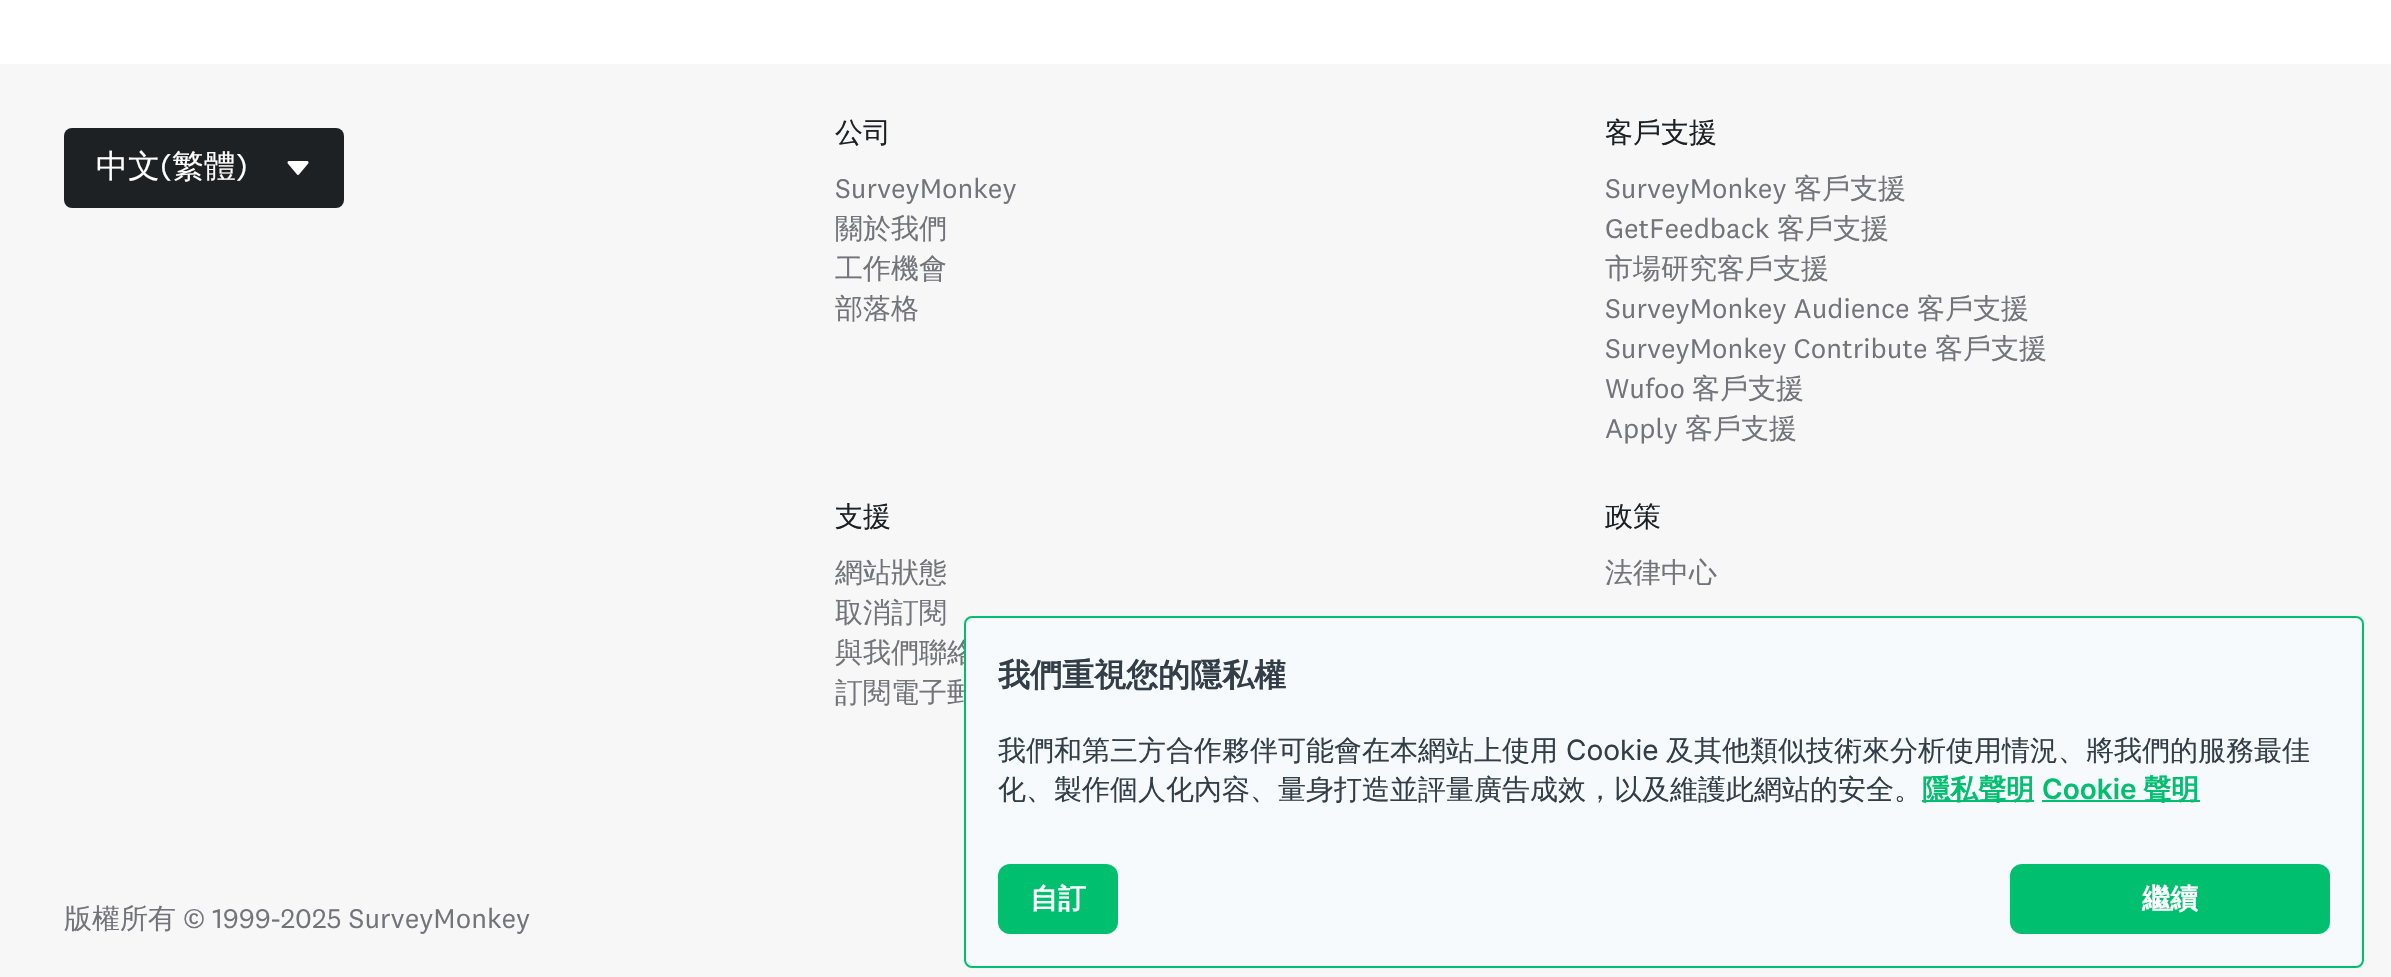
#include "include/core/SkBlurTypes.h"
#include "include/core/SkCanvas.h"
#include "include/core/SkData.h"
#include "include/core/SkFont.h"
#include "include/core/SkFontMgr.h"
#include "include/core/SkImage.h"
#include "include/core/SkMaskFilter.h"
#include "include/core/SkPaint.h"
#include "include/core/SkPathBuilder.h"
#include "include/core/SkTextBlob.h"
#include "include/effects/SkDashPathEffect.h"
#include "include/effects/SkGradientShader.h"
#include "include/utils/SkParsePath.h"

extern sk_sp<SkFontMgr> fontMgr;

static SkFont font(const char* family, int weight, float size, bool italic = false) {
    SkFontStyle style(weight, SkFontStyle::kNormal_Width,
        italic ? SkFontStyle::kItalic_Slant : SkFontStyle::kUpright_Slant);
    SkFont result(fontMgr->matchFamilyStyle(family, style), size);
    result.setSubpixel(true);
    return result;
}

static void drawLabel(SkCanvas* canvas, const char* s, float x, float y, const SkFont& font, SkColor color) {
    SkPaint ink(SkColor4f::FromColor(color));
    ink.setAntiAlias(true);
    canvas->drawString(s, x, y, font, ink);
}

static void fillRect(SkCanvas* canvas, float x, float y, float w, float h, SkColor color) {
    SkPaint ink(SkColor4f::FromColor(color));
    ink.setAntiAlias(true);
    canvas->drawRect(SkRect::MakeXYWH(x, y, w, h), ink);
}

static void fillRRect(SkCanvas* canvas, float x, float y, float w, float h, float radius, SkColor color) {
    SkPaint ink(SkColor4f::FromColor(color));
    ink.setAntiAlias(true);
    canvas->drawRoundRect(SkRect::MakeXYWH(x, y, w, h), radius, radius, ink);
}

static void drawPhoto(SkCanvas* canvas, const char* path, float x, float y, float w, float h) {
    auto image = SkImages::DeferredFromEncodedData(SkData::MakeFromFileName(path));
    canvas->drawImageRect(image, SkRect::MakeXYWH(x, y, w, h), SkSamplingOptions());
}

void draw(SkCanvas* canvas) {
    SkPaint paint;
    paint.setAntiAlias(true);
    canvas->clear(0xFFFFFFFF);
    fillRect(canvas, 0, 64, 2391, 913, 0xFFF7F7F7);
    fillRRect(canvas, 64, 128, 280, 80, 8, 0xFF1E2124);
    SkFont font1 = font("WenQuanYi Zen Hei", 500, 32);
    drawLabel(canvas, "中文", 96, 177, font1, 0xFFFFFFFF);
    SkFont font2 = font("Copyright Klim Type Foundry", 400, 32);
    drawLabel(canvas, "(", 160, 177, font2, 0xFFFFFFFF);
    drawLabel(canvas, "繁體", 172, 177, font1, 0xFFFFFFFF);
    drawLabel(canvas, ")", 236, 177, font2, 0xFFFFFFFF);
    drawPhoto(canvas, "assets/img1.png", 287, 161, 22, 14);
    SkFont font3 = font("WenQuanYi Zen Hei", 500, 28);
    drawLabel(canvas, "公司", 835, 142, font3, 0xFF1E2124);
    SkFont font4 = font("Copyright Klim Type Foundry", 400, 28);
    drawLabel(canvas, "SurveyMonkey", 835, 198, font4, 0xFF73747A);
    drawLabel(canvas, "關於我們", 835, 238, font3, 0xFF73747A);
    drawLabel(canvas, "工作機會", 835, 278, font3, 0xFF73747A);
    drawLabel(canvas, "部落格", 835, 318, font3, 0xFF73747A);
    drawLabel(canvas, "客戶支援", 1605, 142, font3, 0xFF1E2124);
    drawLabel(canvas, "SurveyMonkey", 1605, 198, font4, 0xFF73747A);
    drawLabel(canvas, "客戶支援", 1794, 198, font3, 0xFF73747A);
    drawLabel(canvas, "GetFeedback", 1605, 238, font4, 0xFF73747A);
    drawLabel(canvas, "客戶支援", 1777, 238, font3, 0xFF73747A);
    drawLabel(canvas, "市場研究客戶支援", 1605, 278, font3, 0xFF73747A);
    drawLabel(canvas, "SurveyMonkey Audience", 1605, 318, font4, 0xFF73747A);
    drawLabel(canvas, "客戶支援", 1917, 318, font3, 0xFF73747A);
    drawLabel(canvas, "SurveyMonkey Contribute", 1605, 358, font4, 0xFF73747A);
    drawLabel(canvas, "客戶支援", 1935, 358, font3, 0xFF73747A);
    drawLabel(canvas, "Wufoo", 1605, 398, font4, 0xFF73747A);
    drawLabel(canvas, "客戶支援", 1692, 398, font3, 0xFF73747A);
    drawLabel(canvas, "Apply", 1605, 438, font4, 0xFF73747A);
    drawLabel(canvas, "客戶支援", 1685, 438, font3, 0xFF73747A);
    drawLabel(canvas, "支援", 835, 526, font3, 0xFF1E2124);
    drawLabel(canvas, "網站狀態", 835, 582, font3, 0xFF73747A);
    drawLabel(canvas, "取消訂閱", 835, 622, font3, 0xFF73747A);
    drawLabel(canvas, "與我們聯絡", 835, 662, font3, 0xFF73747A);
    drawLabel(canvas, "訂閱電子郵", 835, 702, font3, 0xFF73747A);
    drawLabel(canvas, "政策", 1605, 526, font3, 0xFF1E2124);
    drawLabel(canvas, "法律中心", 1605, 582, font3, 0xFF73747A);
    drawLabel(canvas, "版權所有", 64, 928, font3, 0xFF73747A);
    drawLabel(canvas, "© 1999-2025 SurveyMonkey", 183, 928, font4, 0xFF73747A);
    paint.setColor(0xFFF7FAFC);
    canvas->drawRoundRect(SkRect::MakeXYWH(965, 617, 1398, 350), 7, 7, paint);
    paint.setStroke(true);
    paint.setStrokeWidth(2);
    paint.setColor(0xFF00BF6F);
    canvas->drawRoundRect(SkRect::MakeXYWH(965, 617, 1398, 350), 7, 7, paint);
    SkFont font5 = font("WenQuanYi Zen Hei", 700, 32);
    drawLabel(canvas, "我們重視您的隱私權", 998, 686, font5, 0xFF333E48);
    drawLabel(canvas, "我們和第三方合作夥伴可能會在本網站上使用", 998, 760, font3, 0xFF333E48);
    SkFont font6 = font("Inter", 400, 28);
    drawLabel(canvas, "Cookie", 1566, 760, font6, 0xFF333E48);
    drawLabel(canvas, "及其他類似技術來分析使用情況、將我們的服務最佳", 1666, 760, font3, 0xFF333E48);
    drawLabel(canvas, "化、製作個人化內容、量身打造並評量廣告成效，以及維護此網站的安全。", 998, 799, font3, 0xFF333E48);
    fillRect(canvas, 1922, 800, 112, 2, 0xFF00BF6F);
    SkFont font7 = font("WenQuanYi Zen Hei", 700, 28);
    drawLabel(canvas, "隱私聲明", 1922, 799, font7, 0xFF00BF6F);
    SkFont font8 = font("Inter", 600, 28);
    drawLabel(canvas, "Cookie", 2042, 799, font8, 0xFF00BF6F);
    fillRect(canvas, 2042, 800, 158, 2, 0xFF00BF6F);
    drawLabel(canvas, "聲明", 2143, 799, font7, 0xFF00BF6F);
    fillRRect(canvas, 998, 864, 120, 70, 12, 0xFF00BF6F);
    drawLabel(canvas, "自訂", 1030, 908, font7, 0xFFFFFFFF);
    fillRRect(canvas, 2010, 864, 320, 70, 12, 0xFF00BF6F);
    drawLabel(canvas, "繼續", 2142, 908, font7, 0xFFFFFFFF);
}
